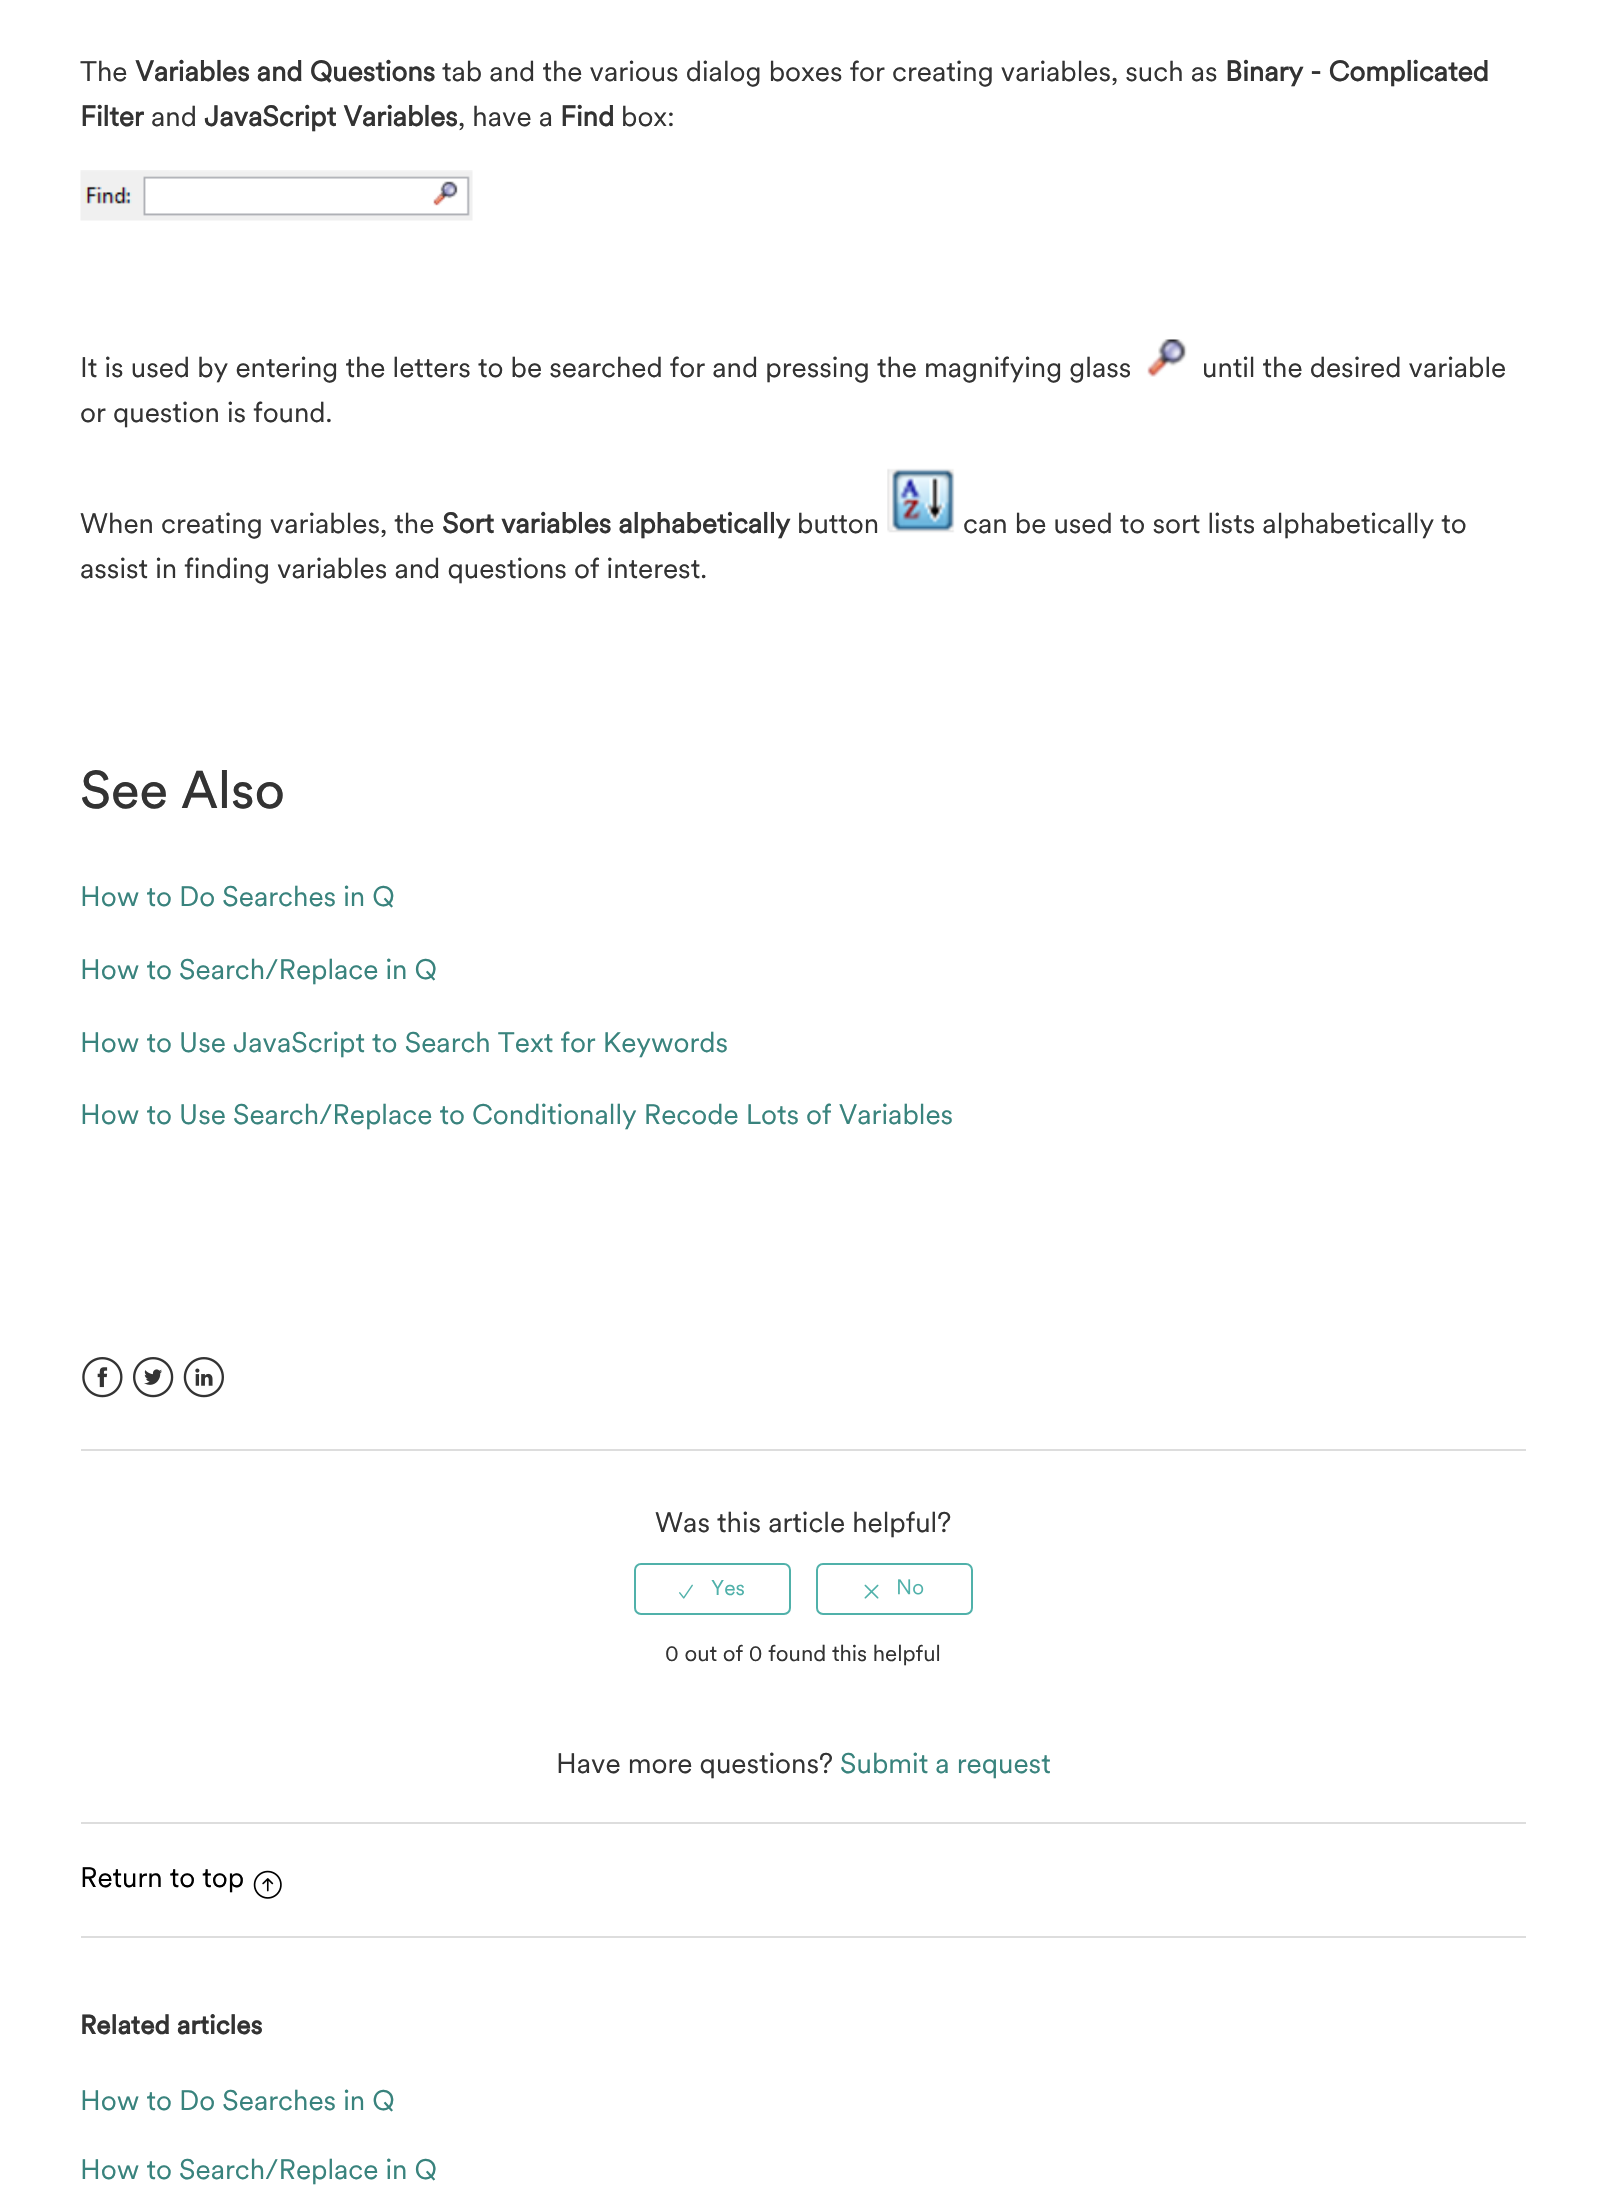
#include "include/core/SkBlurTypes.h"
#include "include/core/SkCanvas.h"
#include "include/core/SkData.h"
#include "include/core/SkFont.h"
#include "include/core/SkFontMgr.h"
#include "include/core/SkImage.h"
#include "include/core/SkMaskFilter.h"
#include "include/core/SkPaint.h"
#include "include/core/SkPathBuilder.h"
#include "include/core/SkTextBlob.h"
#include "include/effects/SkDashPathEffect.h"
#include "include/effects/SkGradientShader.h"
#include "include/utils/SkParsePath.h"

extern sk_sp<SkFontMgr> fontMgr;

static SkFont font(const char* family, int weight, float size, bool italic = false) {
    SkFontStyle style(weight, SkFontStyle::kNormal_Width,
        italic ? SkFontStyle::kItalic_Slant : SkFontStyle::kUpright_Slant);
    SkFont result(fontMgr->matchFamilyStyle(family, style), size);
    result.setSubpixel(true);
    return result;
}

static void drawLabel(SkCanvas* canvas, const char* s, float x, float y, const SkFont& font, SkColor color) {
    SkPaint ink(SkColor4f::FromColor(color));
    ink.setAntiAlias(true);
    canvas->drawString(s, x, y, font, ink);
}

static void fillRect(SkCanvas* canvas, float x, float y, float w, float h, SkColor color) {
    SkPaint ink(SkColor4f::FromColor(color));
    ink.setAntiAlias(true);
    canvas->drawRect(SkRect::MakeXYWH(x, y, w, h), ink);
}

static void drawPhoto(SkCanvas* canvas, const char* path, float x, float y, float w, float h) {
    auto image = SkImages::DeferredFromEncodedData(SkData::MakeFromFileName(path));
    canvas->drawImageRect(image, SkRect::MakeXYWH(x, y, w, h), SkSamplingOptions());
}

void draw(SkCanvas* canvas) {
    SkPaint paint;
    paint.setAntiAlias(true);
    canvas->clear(0xFFFFFFFF);
    SkFont font1 = font("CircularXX", 400, 28);
    drawLabel(canvas, "The", 80, 81, font1, 0xFF333333);
    SkFont font2 = font("CircularXX", 700, 28);
    drawLabel(canvas, "Variables and Questions", 135, 81, font2, 0xFF333333);
    drawLabel(canvas, "tab and the various dialog boxes for creating variables, such as", 442, 81, font1, 0xFF333333);
    drawLabel(canvas, "Binary - Complicated", 1225, 81, font2, 0xFF333333);
    drawLabel(canvas, "Filter", 80, 126, font2, 0xFF333333);
    drawLabel(canvas, "and", 151, 126, font1, 0xFF333333);
    drawLabel(canvas, "JavaScript Variables", 204, 126, font2, 0xFF333333);
    drawLabel(canvas, ", have a", 458, 126, font1, 0xFF333333);
    drawLabel(canvas, "Find", 560, 126, font2, 0xFF333333);
    drawLabel(canvas, "box:", 621, 126, font1, 0xFF333333);
    drawPhoto(canvas, "assets/img1.png", 80, 170, 393, 51);
    drawLabel(canvas, "It is used by entering the letters to be searched for and pressing the magnifying glass", 80, 377, font1, 0xFF333333);
    drawPhoto(canvas, "assets/img2.png", 1147, 339, 40, 38);
    drawLabel(canvas, "until the desired variable", 1202, 377, font1, 0xFF333333);
    drawLabel(canvas, "or question is found.", 80, 422, font1, 0xFF333333);
    drawLabel(canvas, "When creating variables, the", 80, 533, font1, 0xFF333333);
    drawLabel(canvas, "Sort variables alphabetically", 442, 533, font2, 0xFF333333);
    drawLabel(canvas, "button", 797, 533, font1, 0xFF333333);
    drawPhoto(canvas, "assets/img3.png", 887, 468, 68, 65);
    drawLabel(canvas, "can be used to sort lists alphabetically to", 963, 533, font1, 0xFF333333);
    drawLabel(canvas, "assist in finding variables and questions of interest.", 80, 578, font1, 0xFF333333);
    SkFont font3 = font("Circular", 400, 52.5f);
    drawLabel(canvas, "See Also", 80, 808, font3, 0xFF333333);
    drawLabel(canvas, "How to Do Searches in Q", 80, 906, font1, 0xFF39837D);
    drawLabel(canvas, "How to Search/Replace in Q", 80, 979, font1, 0xFF39837D);
    drawLabel(canvas, "How to Use JavaScript to Search Text for Keywords", 80, 1052, font1, 0xFF39837D);
    drawLabel(canvas, "How to Use Search/Replace to Conditionally Recode Lots of Variables", 80, 1124, font1, 0xFF39837D);
    drawPhoto(canvas, "assets/img4.png", 82, 1357, 41, 41);
    drawPhoto(canvas, "assets/img5.png", 133, 1357, 41, 41);
    drawPhoto(canvas, "assets/img6.png", 183, 1357, 41, 41);
    fillRect(canvas, 81, 1449, 1445, 2, 0xFFDDDDDD);
    drawLabel(canvas, "Was this article helpful?", 655, 1532, font1, 0xFF333333);
    paint.setStroke(true);
    paint.setStrokeWidth(2);
    paint.setColor(0xFF50B1AA);
    canvas->drawRoundRect(SkRect::MakeXYWH(635, 1564, 155, 50), 6, 6, paint);
    drawPhoto(canvas, "assets/img7.png", 679, 1584, 14, 15);
    SkFont font4 = font("CircularXX", 400, 21);
    drawLabel(canvas, "Yes", 711, 1595, font4, 0xFF50B1AA);
    canvas->drawRoundRect(SkRect::MakeXYWH(817, 1564, 155, 50), 6, 6, paint);
    drawPhoto(canvas, "assets/img8.png", 864, 1584, 15, 15);
    drawPhoto(canvas, "assets/img9.png", 898, 1579, 26, 16);
    SkFont font5 = font("CircularXX", 400, 22.4f);
    drawLabel(canvas, "0 out of 0 found this helpful", 665, 1661, font5, 0xFF333333);
    drawLabel(canvas, "Have more questions?", 556, 1773, font1, 0xFF333333);
    drawLabel(canvas, "Submit a request", 840, 1773, font1, 0xFF39837D);
    fillRect(canvas, 81, 1822, 1445, 2, 0xFFDDDDDD);
    drawLabel(canvas, "Return to top", 80, 1887, font1, 0xFF000000);
    drawPhoto(canvas, "assets/img10.png", 253, 1870, 29, 29);
    fillRect(canvas, 81, 1936, 1445, 2, 0xFFDDDDDD);
    SkFont font6 = font("Circular", 700, 26.25f);
    drawLabel(canvas, "Related articles", 80, 2034, font6, 0xFF333333);
    drawLabel(canvas, "How to Do Searches in Q", 80, 2110, font1, 0xFF39837D);
    drawLabel(canvas, "How to Search/Replace in Q", 80, 2179, font1, 0xFF39837D);
}
